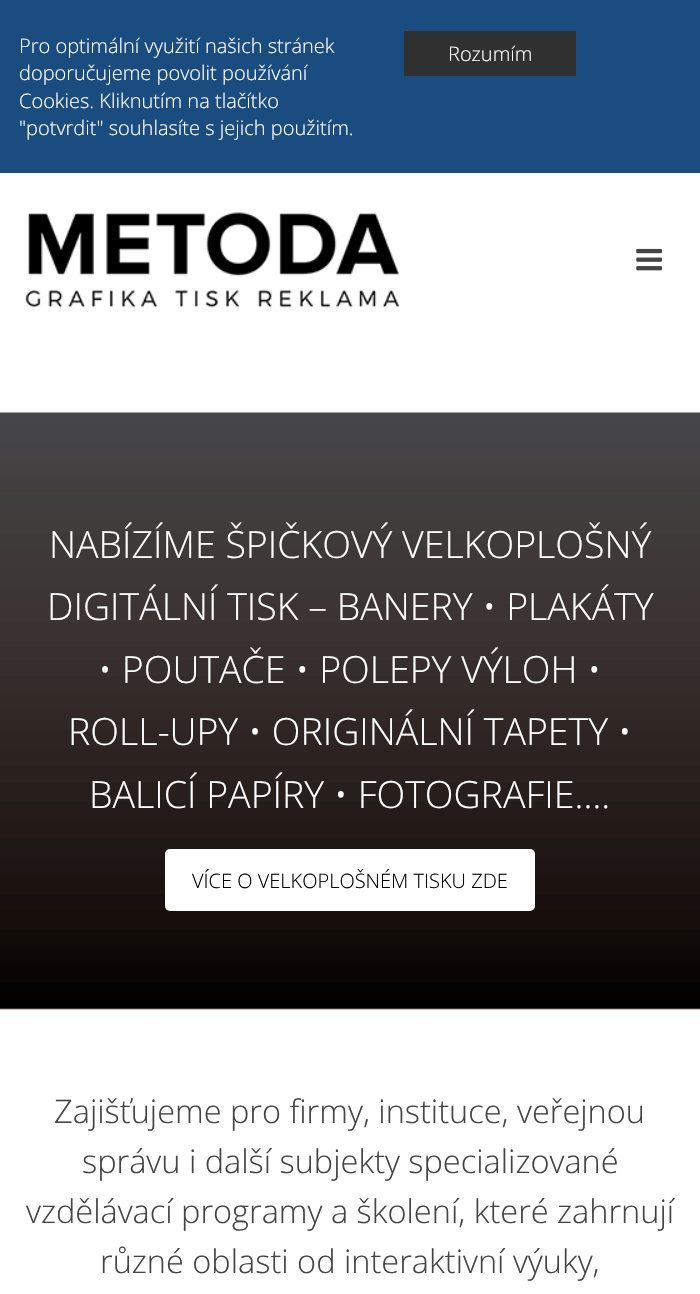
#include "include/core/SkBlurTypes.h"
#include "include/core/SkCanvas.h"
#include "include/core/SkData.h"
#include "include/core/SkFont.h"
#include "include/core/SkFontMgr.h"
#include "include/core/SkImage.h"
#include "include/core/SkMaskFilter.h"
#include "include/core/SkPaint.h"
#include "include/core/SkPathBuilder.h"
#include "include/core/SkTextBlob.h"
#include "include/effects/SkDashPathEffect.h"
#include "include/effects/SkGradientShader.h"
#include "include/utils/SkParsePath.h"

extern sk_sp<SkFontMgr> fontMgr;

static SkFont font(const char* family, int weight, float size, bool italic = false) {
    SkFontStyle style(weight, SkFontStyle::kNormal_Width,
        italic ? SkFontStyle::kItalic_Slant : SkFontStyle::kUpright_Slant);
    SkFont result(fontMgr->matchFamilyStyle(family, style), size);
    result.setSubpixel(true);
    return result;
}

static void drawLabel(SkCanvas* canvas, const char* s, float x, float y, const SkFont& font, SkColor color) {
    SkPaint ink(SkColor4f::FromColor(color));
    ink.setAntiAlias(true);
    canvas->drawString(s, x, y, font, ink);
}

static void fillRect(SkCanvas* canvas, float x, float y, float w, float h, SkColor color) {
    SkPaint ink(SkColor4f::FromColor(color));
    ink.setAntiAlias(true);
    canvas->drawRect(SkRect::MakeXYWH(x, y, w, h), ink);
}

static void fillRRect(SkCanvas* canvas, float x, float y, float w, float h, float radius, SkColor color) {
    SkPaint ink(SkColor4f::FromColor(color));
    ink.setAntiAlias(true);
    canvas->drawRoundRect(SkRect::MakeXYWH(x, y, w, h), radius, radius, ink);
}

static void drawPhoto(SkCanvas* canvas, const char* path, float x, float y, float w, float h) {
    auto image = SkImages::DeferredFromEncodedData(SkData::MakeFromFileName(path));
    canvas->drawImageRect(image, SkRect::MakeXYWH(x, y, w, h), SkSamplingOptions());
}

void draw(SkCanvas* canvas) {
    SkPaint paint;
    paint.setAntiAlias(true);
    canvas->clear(0xFFFFFFFF);
    fillRect(canvas, 0, 0, 700, 173, 0xFF1A4C80);
    SkFont font1 = font("Open Sans", 300, 20);
    drawLabel(canvas, "Pro optimální využití našich stránek", 19, 53, font1, 0xFFFFFFFF);
    drawLabel(canvas, "doporučujeme povolit používání", 19, 80, font1, 0xFFFFFFFF);
    drawLabel(canvas, "Cookies. Kliknutím na tlačítko", 19, 108, font1, 0xFFFFFFFF);
    drawLabel(canvas, "\"potvrdit\" souhlasíte s jejich použitím.", 19, 135, font1, 0xFFFFFFFF);
    fillRect(canvas, 404, 31, 172, 45, 0xFF303030);
    drawLabel(canvas, "Rozumím", 448, 61, font1, 0xFFFFFFFF);
    drawPhoto(canvas, "assets/img1.png", 25, 212, 375, 96);
    drawPhoto(canvas, "assets/img2.png", 636, 248, 26, 23);
    drawPhoto(canvas, "assets/img3.png", 0, 412, 700, 598);
    SkFont font2 = font("Open Sans", 300, 37.5f);
    drawLabel(canvas, "NABÍZÍME ŠPIČKOVÝ VELKOPLOŠNÝ", 49, 558, font2, 0xFFFFFFFF);
    drawLabel(canvas, "DIGITÁLNÍ TISK – BANERY • PLAKÁTY", 47, 620, font2, 0xFFFFFFFF);
    drawLabel(canvas, "• POUTAČE • POLEPY VÝLOH •", 98, 683, font2, 0xFFFFFFFF);
    drawLabel(canvas, "ROLL-UPY • ORIGINÁLNÍ TAPETY •", 68, 745, font2, 0xFFFFFFFF);
    drawLabel(canvas, "BALICÍ PAPÍRY • FOTOGRAFIE….", 89, 808, font2, 0xFFFFFFFF);
    fillRRect(canvas, 165, 849, 370, 62, 5, 0xFFFFFFFF);
    drawLabel(canvas, "VÍCE O VELKOPLOŠNÉM TISKU ZDE", 192, 888, font1, 0xFF020100);
    SkFont font3 = font("Open Sans", 300, 32.5f);
    drawLabel(canvas, "Zajišťujeme pro firmy, instituce, veřejnou", 54, 1123, font3, 0xFF444444);
    drawLabel(canvas, "správu i další subjekty specializované", 82, 1173, font3, 0xFF444444);
    drawLabel(canvas, "vzdělávací programy a školení, které zahrnují", 26, 1223, font3, 0xFF444444);
    drawLabel(canvas, "různé oblasti od interaktivní výuky,", 100, 1273, font3, 0xFF444444);
}
